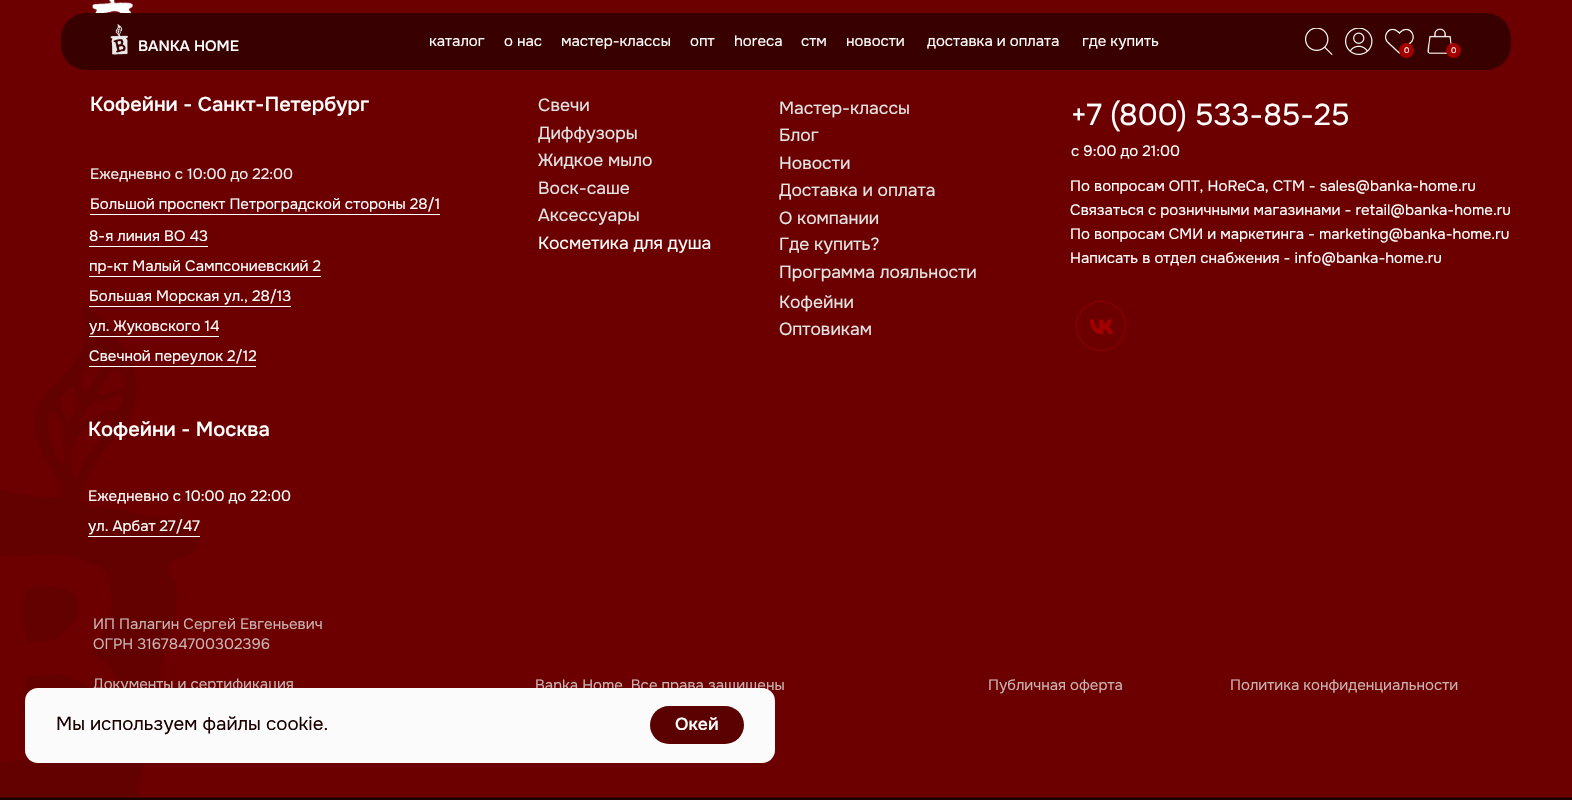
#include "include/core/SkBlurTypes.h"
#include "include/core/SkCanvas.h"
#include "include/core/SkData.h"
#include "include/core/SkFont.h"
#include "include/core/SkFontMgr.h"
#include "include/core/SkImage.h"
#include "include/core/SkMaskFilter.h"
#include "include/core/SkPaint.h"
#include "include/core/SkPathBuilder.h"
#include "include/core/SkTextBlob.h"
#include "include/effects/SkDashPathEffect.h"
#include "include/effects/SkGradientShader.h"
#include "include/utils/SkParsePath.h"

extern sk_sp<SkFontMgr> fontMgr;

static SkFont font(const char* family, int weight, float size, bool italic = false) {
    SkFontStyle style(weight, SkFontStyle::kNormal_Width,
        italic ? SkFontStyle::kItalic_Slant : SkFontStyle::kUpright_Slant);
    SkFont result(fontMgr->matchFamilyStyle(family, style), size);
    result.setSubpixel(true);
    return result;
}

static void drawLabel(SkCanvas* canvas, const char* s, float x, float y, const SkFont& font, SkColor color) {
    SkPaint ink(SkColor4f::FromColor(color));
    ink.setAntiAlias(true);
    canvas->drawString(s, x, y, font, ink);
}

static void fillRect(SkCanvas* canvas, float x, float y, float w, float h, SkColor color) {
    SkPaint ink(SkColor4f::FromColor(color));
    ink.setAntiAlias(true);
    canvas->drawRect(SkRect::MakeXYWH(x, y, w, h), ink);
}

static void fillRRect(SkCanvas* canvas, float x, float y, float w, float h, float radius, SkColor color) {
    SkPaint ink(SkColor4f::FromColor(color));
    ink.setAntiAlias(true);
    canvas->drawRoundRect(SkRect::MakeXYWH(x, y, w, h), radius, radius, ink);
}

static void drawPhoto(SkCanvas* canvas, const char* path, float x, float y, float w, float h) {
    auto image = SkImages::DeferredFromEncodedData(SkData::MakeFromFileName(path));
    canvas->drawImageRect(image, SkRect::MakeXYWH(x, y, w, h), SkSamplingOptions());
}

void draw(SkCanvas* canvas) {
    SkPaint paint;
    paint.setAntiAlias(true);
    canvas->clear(0xFF1A0000);
    fillRect(canvas, 0, 0, 1572, 307, 0xFF6C0000);
    fillRRect(canvas, 61, 13, 1450, 57, 25, 0xFF390000);
    drawPhoto(canvas, "assets/img1.png", 110, 24, 18, 31);
    SkFont font1 = font("Onest", 500, 15);
    drawLabel(canvas, "BANKA HOME", 138, 51, font1, 0xFFFFFFFF);
    SkFont font2 = font("Onest", 400, 15);
    drawLabel(canvas, "каталог", 429, 46, font2, 0xFFFFFFFF);
    drawLabel(canvas, "о нас", 504, 46, font2, 0xFFFFFFFF);
    drawLabel(canvas, "мастер-классы", 561, 46, font2, 0xFFFFFFFF);
    drawLabel(canvas, "опт", 690, 46, font2, 0xFFFFFFFF);
    drawLabel(canvas, "horeca", 734, 46, font2, 0xFFFFFFFF);
    drawLabel(canvas, "стм", 801, 46, font2, 0xFFFFFFFF);
    drawLabel(canvas, "новости", 846, 46, font2, 0xFFFFFFFF);
    drawLabel(canvas, "доставка и оплата", 927, 46, font2, 0xFFFFFFFF);
    drawLabel(canvas, "где купить", 1082, 46, font2, 0xFFFFFFFF);
    drawPhoto(canvas, "assets/img2.png", 1305, 28, 28, 27);
    drawPhoto(canvas, "assets/img3.png", 1345, 28, 28, 27);
    drawPhoto(canvas, "assets/img4.png", 1385, 28, 29, 26);
    drawPhoto(canvas, "assets/img5.png", 1427, 28, 25, 26);
    paint.setColor(0xFFA40000);
    canvas->drawCircle(1406.5f, 50.5f, 7.5f, paint);
    canvas->drawCircle(1453.5f, 50.5f, 7.5f, paint);
    SkFont font3 = font("Onest", 400, 8);
    drawLabel(canvas, "0", 1404, 53, font3, 0xFFFFFFFF);
    drawLabel(canvas, "0", 1451, 53, font3, 0xFFFFFFFF);
    drawPhoto(canvas, "assets/img8.png", 0, 307, 1572, 491);
    drawLabel(canvas, "Документы и сертификация", 93, 689, font2, 0xFFC9B2B2);
    drawLabel(canvas, "Banka Home. Все права защищены", 535, 690, font2, 0xFFC9B2B2);
    fillRRect(canvas, 25, 688, 750, 75, 13, 0xFFFBFBFB);
    SkFont font4 = font("Onest", 400, 18.75f);
    drawLabel(canvas, "Мы используем файлы cookie.", 56, 730, font4, 0xFF1A0000);
    fillRRect(canvas, 650, 706, 94, 38, 19, 0xFF5C0101);
    SkFont font5 = font("Onest", 500, 17.5f);
    drawLabel(canvas, "Окей", 675, 730, font5, 0xFFFFFFFF);
    drawPhoto(canvas, "assets/img6.png", 92, 0, 41, 13);
    SkFont font6 = font("Onest", 500, 20);
    drawLabel(canvas, "Кофейни - Санкт-Петербург", 90, 111, font6, 0xFFFFFFFF);
    SkFont font7 = font("Onest", 400, 17.5f);
    drawLabel(canvas, "Свечи", 538, 111, font7, 0xFFE5E5E5);
    drawLabel(canvas, "Мастер-классы", 779, 114, font7, 0xFFE5E5E5);
    SkFont font8 = font("Onest", 400, 30);
    drawLabel(canvas, "+7 (800) 533-85-25", 1071, 125, font8, 0xFFFFFFFF);
    drawLabel(canvas, "Диффузоры", 538, 139, font7, 0xFFE5E5E5);
    drawLabel(canvas, "Блог", 779, 141, font7, 0xFFE5E5E5);
    drawLabel(canvas, "Жидкое мыло", 538, 166, font7, 0xFFE5E5E5);
    drawLabel(canvas, "Новости", 779, 169, font7, 0xFFE5E5E5);
    drawLabel(canvas, "с 9:00 до 21:00", 1071, 156, font2, 0xFFFFFFFF);
    drawLabel(canvas, "Ежедневно с 10:00 до 22:00", 90, 179, font2, 0xFFF1F1F1);
    drawLabel(canvas, "Большой проспект Петроградской стороны 28/1", 90, 209, font2, 0xFFFFFFFF);
    fillRect(canvas, 90, 214, 350, 1, 0xFFFFFFFF);
    drawLabel(canvas, "Воск-саше", 538, 194, font7, 0xFFE5E5E5);
    drawLabel(canvas, "Доставка и оплата", 779, 196, font7, 0xFFE5E5E5);
    drawLabel(canvas, "По вопросам ОПТ, HoReCa, СТМ - sales@banka-home.ru", 1070, 191, font2, 0xFFFFFFFF);
    drawLabel(canvas, "Связаться с розничными магазинами - retail@banka-home.ru", 1070, 215, font2, 0xFFFFFFFF);
    drawLabel(canvas, "По вопросам СМИ и маркетинга - marketing@banka-home.ru", 1070, 239, font2, 0xFFFFFFFF);
    drawLabel(canvas, "Написать в отдел снабжения - info@banka-home.ru", 1070, 263, font2, 0xFFFFFFFF);
    drawLabel(canvas, "Аксессуары", 538, 221, font7, 0xFFE5E5E5);
    drawLabel(canvas, "О компании", 779, 224, font7, 0xFFE5E5E5);
    drawLabel(canvas, "8-я линия ВО 43", 89, 241, font2, 0xFFFFFFFF);
    fillRect(canvas, 89, 246, 119, 1, 0xFFFFFFFF);
    drawLabel(canvas, "пр-кт Малый Сампсониевский 2", 89, 271, font2, 0xFFFFFFFF);
    fillRect(canvas, 89, 276, 232, 1, 0xFFFFFFFF);
    drawLabel(canvas, "Большая Морская ул., 28/13", 89, 301, font2, 0xFFFFFFFF);
    fillRect(canvas, 89, 306, 202, 1, 0xFFFFFFFF);
    drawLabel(canvas, "ул. Жуковского 14", 89, 331, font2, 0xFFFFFFFF);
    fillRect(canvas, 89, 336, 130, 1, 0xFFFFFFFF);
    drawLabel(canvas, "Свечной переулок 2/12", 89, 361, font2, 0xFFFFFFFF);
    fillRect(canvas, 89, 366, 167, 1, 0xFFFFFFFF);
    drawLabel(canvas, "Косметика для душа", 538, 249, font7, 0xFFFFFFFF);
    drawLabel(canvas, "Где купить?", 779, 250, font7, 0xFFE5E5E5);
    drawLabel(canvas, "Программа лояльности", 779, 278, font7, 0xFFE5E5E5);
    drawLabel(canvas, "Кофейни", 779, 308, font7, 0xFFE5E5E5);
    drawPhoto(canvas, "assets/img7.png", 1076, 301, 50, 50);
    drawLabel(canvas, "Оптовикам", 779, 335, font7, 0xFFE5E5E5);
    drawLabel(canvas, "Кофейни - Москва", 88, 436, font6, 0xFFFFFFFF);
    drawLabel(canvas, "Ежедневно с 10:00 до 22:00", 88, 501, font2, 0xFFFFFFFF);
    drawLabel(canvas, "ул. Арбат 27/47", 88, 531, font2, 0xFFFFFFFF);
    fillRect(canvas, 88, 536, 112, 1, 0xFFFFFFFF);
    drawLabel(canvas, "ИП Палагин Сергей Евгеньевич", 93, 629, font2, 0xFFC9B2B2);
    drawLabel(canvas, "ОГРН 316784700302396", 93, 649, font2, 0xFFC9B2B2);
    drawLabel(canvas, "Публичная оферта", 988, 690, font2, 0xFFC9B2B2);
    drawLabel(canvas, "Политика конфиденциальности", 1230, 690, font2, 0xFFC9B2B2);
}
